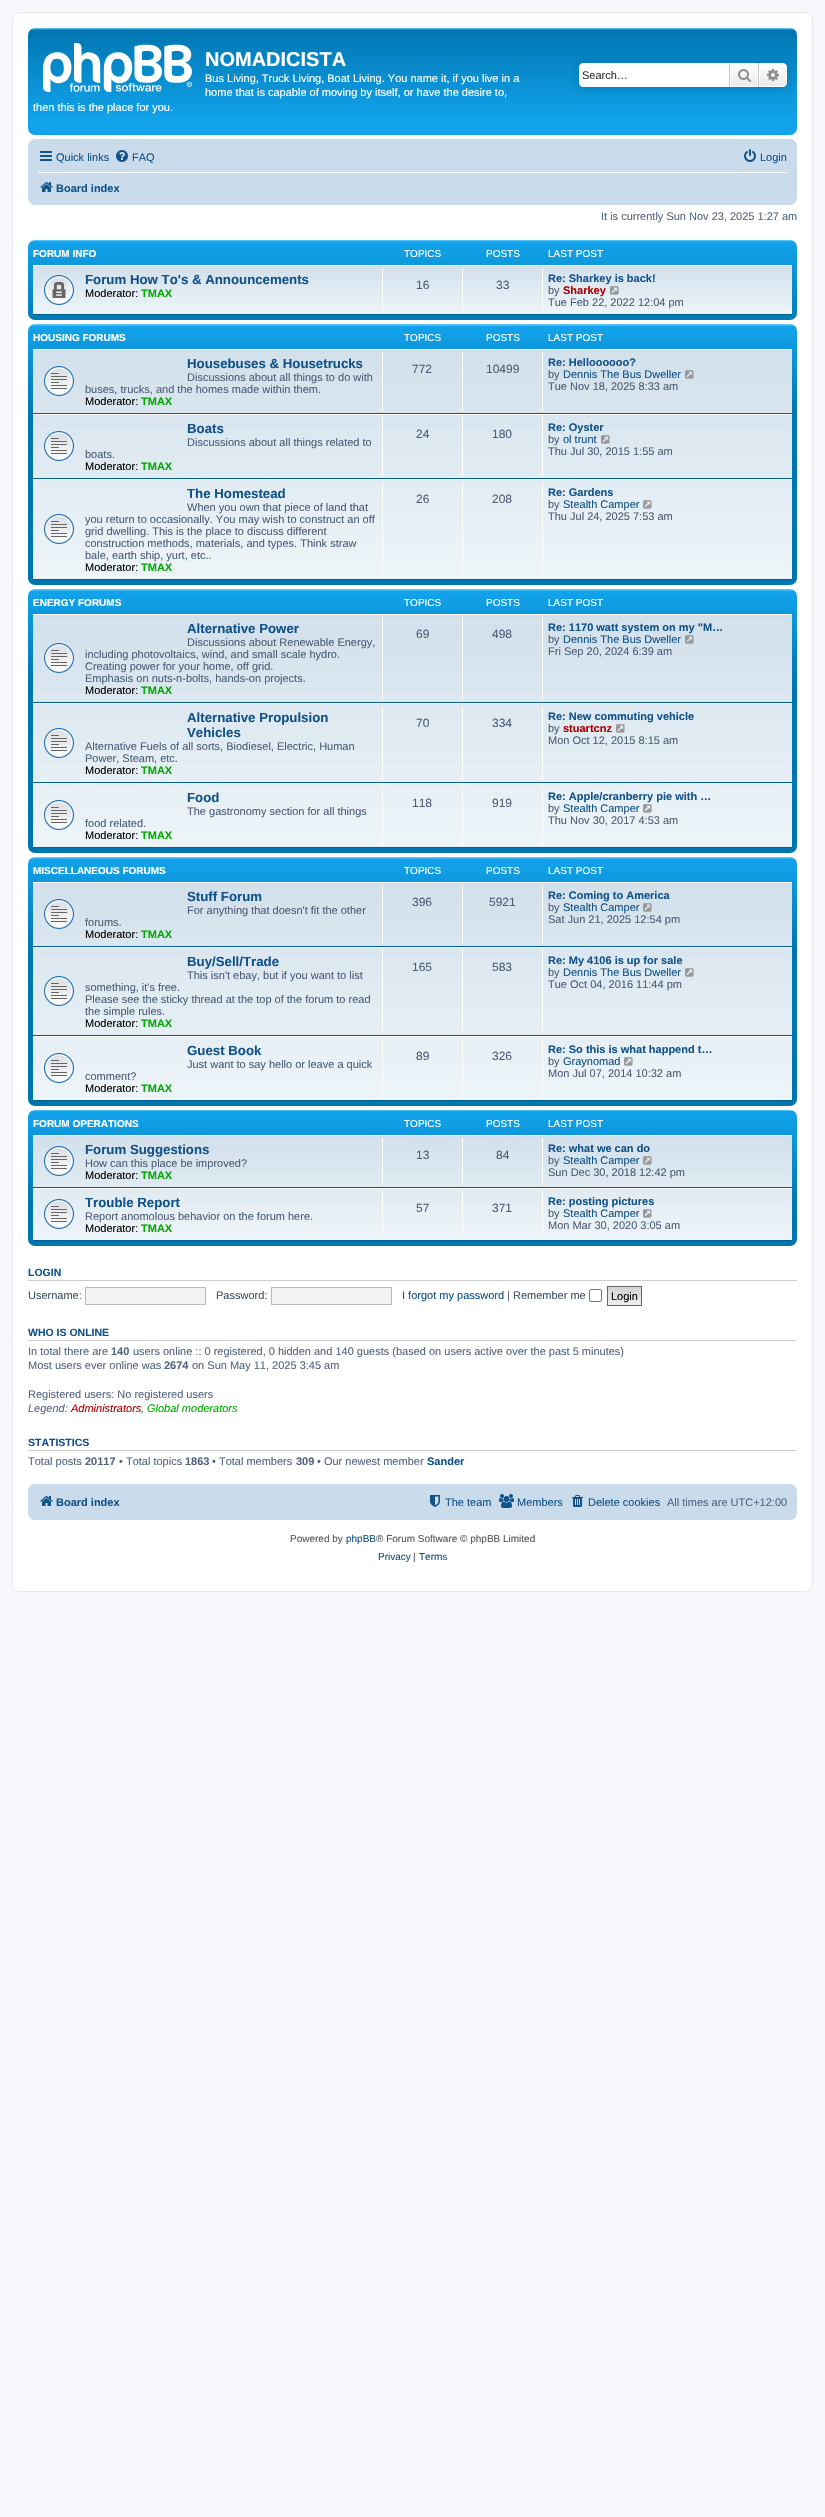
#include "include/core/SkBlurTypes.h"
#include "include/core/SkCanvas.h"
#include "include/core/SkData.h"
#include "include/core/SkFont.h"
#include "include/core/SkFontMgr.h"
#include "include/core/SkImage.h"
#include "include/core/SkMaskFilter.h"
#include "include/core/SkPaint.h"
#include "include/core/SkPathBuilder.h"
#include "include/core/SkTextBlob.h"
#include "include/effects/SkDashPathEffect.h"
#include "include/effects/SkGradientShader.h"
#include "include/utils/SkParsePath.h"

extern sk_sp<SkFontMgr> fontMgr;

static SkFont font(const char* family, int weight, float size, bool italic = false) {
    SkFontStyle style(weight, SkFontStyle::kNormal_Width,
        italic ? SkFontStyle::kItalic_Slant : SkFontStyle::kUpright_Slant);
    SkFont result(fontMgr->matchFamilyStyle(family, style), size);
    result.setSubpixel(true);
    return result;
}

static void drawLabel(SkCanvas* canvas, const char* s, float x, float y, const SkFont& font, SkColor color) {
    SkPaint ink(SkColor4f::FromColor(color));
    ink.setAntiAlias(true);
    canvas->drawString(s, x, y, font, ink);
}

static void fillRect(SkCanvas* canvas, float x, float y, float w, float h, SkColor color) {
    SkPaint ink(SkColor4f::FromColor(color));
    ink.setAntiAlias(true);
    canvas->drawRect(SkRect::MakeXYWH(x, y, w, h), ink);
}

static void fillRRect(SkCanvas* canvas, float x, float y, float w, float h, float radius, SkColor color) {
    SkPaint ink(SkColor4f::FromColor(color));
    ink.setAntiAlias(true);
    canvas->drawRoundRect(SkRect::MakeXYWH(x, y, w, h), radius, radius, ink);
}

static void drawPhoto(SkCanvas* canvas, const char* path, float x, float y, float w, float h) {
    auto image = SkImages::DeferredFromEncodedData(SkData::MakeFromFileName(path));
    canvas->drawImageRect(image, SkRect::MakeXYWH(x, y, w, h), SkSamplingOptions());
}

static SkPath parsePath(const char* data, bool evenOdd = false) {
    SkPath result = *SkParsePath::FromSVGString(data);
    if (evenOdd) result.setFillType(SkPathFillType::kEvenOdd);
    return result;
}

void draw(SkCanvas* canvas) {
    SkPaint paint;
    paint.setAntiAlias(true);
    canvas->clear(0xFFF5F7FA);
    paint.setColor(0xFFFFFFFF);
    canvas->drawRoundRect(SkRect::MakeXYWH(12.5f, 12.5f, 800, 1579), 7.5f, 7.5f, paint);
    paint.setStroke(true);
    paint.setStrokeWidth(1);
    paint.setColor(0xFFE6E9ED);
    canvas->drawRoundRect(SkRect::MakeXYWH(12.5f, 12.5f, 800, 1579), 7.5f, 7.5f, paint);
    paint.setStroke(false);
    {
        const SkColor colors[] = {0xFF6ACEFF, 0xFF0076B1, 0xFF12A3EB, 0xFF12A3EB};
        const float stops[] = {0, 0.02f, 0.86f, 1};
        const SkPoint ends[] = {{413, 28}, {413, 135}};
        paint.setShader(SkGradientShader::MakeLinear(ends, colors, stops, 4, SkTileMode::kClamp));
        paint.setAlpha(255);
    }
    canvas->drawRoundRect(SkRect::MakeXYWH(28, 28, 769, 107), 7, 7, paint);
    drawPhoto(canvas, "assets/img1.png", 43, 43, 149, 49);
    SkFont font1 = font("Liberation Sans", 700, 20);
    drawLabel(canvas, "NOMADICISTA", 205, 66, font1, 0xFFFFFFFF);
    SkFont font2 = font("Liberation Sans", 400, 11);
    drawLabel(canvas, "Bus Living, Truck Living, Boat Living. You name it, if you live in a", 205, 82, font2, 0xFFFFFFFF);
    drawLabel(canvas, "home that is capable of moving by itself, or have the desire to,", 205, 96, font2, 0xFFFFFFFF);
    drawLabel(canvas, "then this is the place for you.", 33, 111, font2, 0xFFFFFFFF);
    paint.setShader(nullptr);
    paint.setColor(0xFF0075B0);
    paint.setMaskFilter(SkMaskFilter::MakeBlur(kNormal_SkBlurStyle, 5));
    canvas->drawRoundRect(SkRect::MakeXYWH(579, 63, 208, 24), 4, 4, paint);
    paint.setMaskFilter(nullptr);
    paint.setColor(0xFFFFFFFF);
    canvas->drawPath(parsePath("M583 63H729V87H583C581 87 579 85 579 83V67C579 65 581 63 583 63Z"), paint);
    drawLabel(canvas, "Search…", 582, 79, font2, 0xFF333333);
    {
        const SkColor colors[] = {0xFFFFFFFF, 0xFFE9E9E9};
        const float stops[] = {0, 1};
        const SkPoint ends[] = {{744, 63}, {744, 87}};
        paint.setShader(SkGradientShader::MakeLinear(ends, colors, stops, 2, SkTileMode::kClamp));
        paint.setAlpha(255);
    }
    canvas->drawRect(SkRect::MakeXYWH(731, 64, 26, 22), paint);
    paint.setStroke(true);
    paint.setShader(nullptr);
    paint.setColor(0xFFFFFFFF);
    canvas->drawRect(SkRect::MakeXYWH(730.5f, 63.5f, 27, 23), paint);
    fillRect(canvas, 758, 63, 1, 24, 0xFFC7C3BF);
    fillRect(canvas, 729, 63, 1, 24, 0xFFC7C3BF);
    drawPhoto(canvas, "assets/img2.png", 738, 69, 13, 13);
    paint.setStroke(false);
    {
        const SkColor colors[] = {0xFFFFFFFF, 0xFFE9E9E9};
        const float stops[] = {0, 1};
        const SkPoint ends[] = {{773, 63}, {773, 87}};
        paint.setShader(SkGradientShader::MakeLinear(ends, colors, stops, 2, SkTileMode::kClamp));
        paint.setAlpha(255);
    }
    canvas->drawPath(parsePath("M759.5 63.5H783C785 63.5 786.5 65 786.5 67V83C786.5 85 785 86.5 783 86.5H759.5Z"), paint);
    paint.setStroke(true);
    paint.setShader(nullptr);
    paint.setColor(0xFFFFFFFF);
    canvas->drawPath(parsePath("M759.5 63.5H783C785 63.5 786.5 65 786.5 67V83C786.5 85 785 86.5 783 86.5H759.5Z"), paint);
    drawPhoto(canvas, "assets/img3.png", 767, 69, 12, 12);
    fillRRect(canvas, 28, 139, 769, 66, 7, 0xFFCADCEB);
    drawPhoto(canvas, "assets/img4.png", 40, 151, 12, 10);
    drawLabel(canvas, "Quick links", 56, 161, font2, 0xFF105289);
    drawPhoto(canvas, "assets/img5.png", 116, 150, 12, 12);
    drawLabel(canvas, "FAQ", 132, 161, font2, 0xFF105289);
    drawPhoto(canvas, "assets/img6.png", 744, 149, 12, 13);
    drawLabel(canvas, "Login", 760, 161, font2, 0xFF105289);
    fillRect(canvas, 38, 172, 749, 1, 0xFFFFFFFF);
    drawPhoto(canvas, "assets/img7.png", 40, 182, 13, 10);
    SkFont font3 = font("Liberation Sans", 700, 11);
    drawLabel(canvas, "Board index", 56, 192, font3, 0xFF105289);
    drawLabel(canvas, "It is currently Sun Nov 23, 2025 1:27 am", 601, 220, font2, 0xFF536482);
    paint.setStroke(false);
    {
        const SkColor colors[] = {0xFF6ACEFF, 0xFF12A3EB, 0xFF0076B1};
        const float stops[] = {0, 0.02f, 1};
        const SkPoint ends[] = {{413, 240}, {413, 332}};
        paint.setShader(SkGradientShader::MakeLinear(ends, colors, stops, 3, SkTileMode::kClamp));
        paint.setAlpha(255);
    }
    canvas->drawRoundRect(SkRect::MakeXYWH(28, 240, 769, 80), 7, 7, paint);
    SkFont font4 = font("Liberation Sans", 700, 10);
    drawLabel(canvas, "FORUM INFO", 33, 257, font4, 0xFFFFFFFF);
    SkFont font5 = font("Liberation Sans", 400, 10);
    drawLabel(canvas, "TOPICS", 404, 257, font5, 0xFFFFFFFF);
    drawLabel(canvas, "POSTS", 486, 257, font5, 0xFFFFFFFF);
    drawLabel(canvas, "LAST POST", 548, 257, font5, 0xFFFFFFFF);
    {
        const SkColor colors[] = {0xFFD2E0EB, 0xFFEEF5F9};
        const float stops[] = {0, 1};
        const SkPoint ends[] = {{413, 265}, {413, 315}};
        paint.setShader(SkGradientShader::MakeLinear(ends, colors, stops, 2, SkTileMode::kClamp));
        paint.setAlpha(255);
    }
    canvas->drawRect(SkRect::MakeXYWH(33, 266, 759, 48), paint);
    fillRect(canvas, 33, 265, 759, 1, 0xFFFFFFFF);
    fillRect(canvas, 33, 314, 759, 1, 0xFF00608F);
    drawPhoto(canvas, "assets/img8.png", 44, 275, 30, 30);
    SkFont font6 = font("Liberation Sans", 700, 13.25f);
    drawLabel(canvas, "Forum How To's & Announcements", 85, 284, font6, 0xFF105289);
    drawLabel(canvas, "Moderator:", 85, 297, font2, 0xFF000000);
    drawLabel(canvas, "TMAX", 141, 297, font3, 0xFF00AA00);
    fillRect(canvas, 382, 268, 1, 44, 0xFFFFFFFF);
    SkFont font7 = font("Liberation Sans", 400, 12);
    drawLabel(canvas, "16", 416, 289, font7, 0xFF4C5D77);
    fillRect(canvas, 462, 268, 1, 44, 0xFFFFFFFF);
    drawLabel(canvas, "33", 496, 289, font7, 0xFF4C5D77);
    fillRect(canvas, 542, 268, 1, 44, 0xFFFFFFFF);
    drawLabel(canvas, "Re: Sharkey is back!", 548, 282, font3, 0xFF105289);
    drawLabel(canvas, "by", 548, 294, font2, 0xFF4C5D77);
    drawLabel(canvas, "Sharkey", 563, 294, font3, 0xFFAA0000);
    drawPhoto(canvas, "assets/img9.png", 610, 286, 9, 9);
    drawLabel(canvas, "Tue Feb 22, 2022 12:04 pm", 548, 306, font2, 0xFF4C5D77);
    {
        const SkColor colors[] = {0xFF6ACEFF, 0xFF12A3EB, 0xFF0076B1, 0xFF0076B1};
        const float stops[] = {0, 0.01f, 0.35f, 1};
        const SkPoint ends[] = {{413, 324}, {413, 585}};
        paint.setShader(SkGradientShader::MakeLinear(ends, colors, stops, 4, SkTileMode::kClamp));
        paint.setAlpha(255);
    }
    canvas->drawRoundRect(SkRect::MakeXYWH(28, 324, 769, 261), 7, 7, paint);
    drawLabel(canvas, "HOUSING FORUMS", 33, 341, font4, 0xFFFFFFFF);
    drawLabel(canvas, "TOPICS", 404, 341, font5, 0xFFFFFFFF);
    drawLabel(canvas, "POSTS", 486, 341, font5, 0xFFFFFFFF);
    drawLabel(canvas, "LAST POST", 548, 341, font5, 0xFFFFFFFF);
    {
        const SkColor colors[] = {0xFFD2E0EB, 0xFFEEF5F9};
        const float stops[] = {0, 1};
        const SkPoint ends[] = {{413, 349}, {413, 580}};
        paint.setShader(SkGradientShader::MakeLinear(ends, colors, stops, 2, SkTileMode::kClamp));
        paint.setAlpha(255);
    }
    canvas->drawRect(SkRect::MakeXYWH(33, 350, 759, 229), paint);
    fillRect(canvas, 33, 349, 759, 1, 0xFFFFFFFF);
    fillRect(canvas, 33, 413, 759, 1, 0xFF00608F);
    drawPhoto(canvas, "assets/img10.png", 44, 366, 30, 30);
    drawLabel(canvas, "Housebuses & Housetrucks", 187, 368, font6, 0xFF105289);
    drawLabel(canvas, "Discussions about all things to do with", 187, 381, font2, 0xFF4C5D77);
    drawLabel(canvas, "buses, trucks, and the homes made within them.", 85, 393, font2, 0xFF4C5D77);
    drawLabel(canvas, "Moderator:", 85, 405, font2, 0xFF000000);
    drawLabel(canvas, "TMAX", 141, 405, font3, 0xFF00AA00);
    fillRect(canvas, 382, 352, 1, 59, 0xFFFFFFFF);
    drawLabel(canvas, "772", 412, 373, font7, 0xFF4C5D77);
    fillRect(canvas, 462, 352, 1, 59, 0xFFFFFFFF);
    drawLabel(canvas, "10499", 486, 373, font7, 0xFF4C5D77);
    fillRect(canvas, 542, 352, 1, 59, 0xFFFFFFFF);
    drawLabel(canvas, "Re: Helloooooo?", 548, 366, font3, 0xFF105289);
    drawLabel(canvas, "by", 548, 378, font2, 0xFF4C5D77);
    drawLabel(canvas, "Dennis The Bus Dweller", 563, 378, font2, 0xFF105289);
    drawPhoto(canvas, "assets/img11.png", 685, 370, 9, 9);
    drawLabel(canvas, "Tue Nov 18, 2025 8:33 am", 548, 390, font2, 0xFF4C5D77);
    fillRect(canvas, 33, 414, 759, 1, 0xFFFFFFFF);
    fillRect(canvas, 33, 478, 759, 1, 0xFF00608F);
    drawPhoto(canvas, "assets/img12.png", 44, 431, 30, 30);
    drawLabel(canvas, "Boats", 187, 433, font6, 0xFF105289);
    drawLabel(canvas, "Discussions about all things related to", 187, 446, font2, 0xFF4C5D77);
    drawLabel(canvas, "boats.", 85, 458, font2, 0xFF4C5D77);
    drawLabel(canvas, "Moderator:", 85, 470, font2, 0xFF000000);
    drawLabel(canvas, "TMAX", 141, 470, font3, 0xFF00AA00);
    fillRect(canvas, 382, 417, 1, 59, 0xFFFFFFFF);
    drawLabel(canvas, "24", 416, 438, font7, 0xFF4C5D77);
    fillRect(canvas, 462, 417, 1, 59, 0xFFFFFFFF);
    drawLabel(canvas, "180", 492, 438, font7, 0xFF4C5D77);
    fillRect(canvas, 542, 417, 1, 59, 0xFFFFFFFF);
    drawLabel(canvas, "Re: Oyster", 548, 431, font3, 0xFF105289);
    drawLabel(canvas, "by", 548, 443, font2, 0xFF4C5D77);
    drawLabel(canvas, "ol trunt", 563, 443, font2, 0xFF105289);
    drawPhoto(canvas, "assets/img13.png", 601, 435, 9, 9);
    drawLabel(canvas, "Thu Jul 30, 2015 1:55 am", 548, 455, font2, 0xFF4C5D77);
    fillRect(canvas, 33, 479, 759, 1, 0xFFFFFFFF);
    fillRect(canvas, 33, 579, 759, 1, 0xFF00608F);
    drawPhoto(canvas, "assets/img14.png", 44, 514, 30, 30);
    drawLabel(canvas, "The Homestead", 187, 498, font6, 0xFF105289);
    drawLabel(canvas, "When you own that piece of land that", 187, 511, font2, 0xFF4C5D77);
    drawLabel(canvas, "you return to occasionally. You may wish to construct an off", 85, 523, font2, 0xFF4C5D77);
    drawLabel(canvas, "grid dwelling. This is the place to discuss different", 85, 535, font2, 0xFF4C5D77);
    drawLabel(canvas, "construction methods, materials, and types. Think straw", 85, 547, font2, 0xFF4C5D77);
    drawLabel(canvas, "bale, earth ship, yurt, etc..", 85, 559, font2, 0xFF4C5D77);
    drawLabel(canvas, "Moderator:", 85, 571, font2, 0xFF000000);
    drawLabel(canvas, "TMAX", 141, 571, font3, 0xFF00AA00);
    fillRect(canvas, 382, 482, 1, 95, 0xFFFFFFFF);
    drawLabel(canvas, "26", 416, 503, font7, 0xFF4C5D77);
    fillRect(canvas, 462, 482, 1, 95, 0xFFFFFFFF);
    drawLabel(canvas, "208", 492, 503, font7, 0xFF4C5D77);
    fillRect(canvas, 542, 482, 1, 95, 0xFFFFFFFF);
    drawLabel(canvas, "Re: Gardens", 548, 496, font3, 0xFF105289);
    drawLabel(canvas, "by", 548, 508, font2, 0xFF4C5D77);
    drawLabel(canvas, "Stealth Camper", 563, 508, font2, 0xFF105289);
    drawPhoto(canvas, "assets/img15.png", 643, 500, 9, 9);
    drawLabel(canvas, "Thu Jul 24, 2025 7:53 am", 548, 520, font2, 0xFF4C5D77);
    {
        const SkColor colors[] = {0xFF6ACEFF, 0xFF12A3EB, 0xFF0076B1, 0xFF0076B1};
        const float stops[] = {0, 0.01f, 0.35f, 1};
        const SkPoint ends[] = {{413, 589}, {413, 853}};
        paint.setShader(SkGradientShader::MakeLinear(ends, colors, stops, 4, SkTileMode::kClamp));
        paint.setAlpha(255);
    }
    canvas->drawRoundRect(SkRect::MakeXYWH(28, 589, 769, 264), 7, 7, paint);
    drawLabel(canvas, "ENERGY FORUMS", 33, 606, font4, 0xFFFFFFFF);
    drawLabel(canvas, "TOPICS", 404, 606, font5, 0xFFFFFFFF);
    drawLabel(canvas, "POSTS", 486, 606, font5, 0xFFFFFFFF);
    drawLabel(canvas, "LAST POST", 548, 606, font5, 0xFFFFFFFF);
    {
        const SkColor colors[] = {0xFFD2E0EB, 0xFFEEF5F9};
        const float stops[] = {0, 1};
        const SkPoint ends[] = {{413, 614}, {413, 848}};
        paint.setShader(SkGradientShader::MakeLinear(ends, colors, stops, 2, SkTileMode::kClamp));
        paint.setAlpha(255);
    }
    canvas->drawRect(SkRect::MakeXYWH(33, 615, 759, 232), paint);
    fillRect(canvas, 33, 614, 759, 1, 0xFFFFFFFF);
    fillRect(canvas, 33, 702, 759, 1, 0xFF00608F);
    drawPhoto(canvas, "assets/img16.png", 44, 643, 30, 30);
    drawLabel(canvas, "Alternative Power", 187, 633, font6, 0xFF105289);
    drawLabel(canvas, "Discussions about Renewable Energy,", 187, 646, font2, 0xFF4C5D77);
    drawLabel(canvas, "including photovoltaics, wind, and small scale hydro.", 85, 658, font2, 0xFF4C5D77);
    drawLabel(canvas, "Creating power for your home, off grid.", 85, 670, font2, 0xFF4C5D77);
    drawLabel(canvas, "Emphasis on nuts-n-bolts, hands-on projects.", 85, 682, font2, 0xFF4C5D77);
    drawLabel(canvas, "Moderator:", 85, 694, font2, 0xFF000000);
    drawLabel(canvas, "TMAX", 141, 694, font3, 0xFF00AA00);
    fillRect(canvas, 382, 617, 1, 83, 0xFFFFFFFF);
    drawLabel(canvas, "69", 416, 638, font7, 0xFF4C5D77);
    fillRect(canvas, 462, 617, 1, 83, 0xFFFFFFFF);
    drawLabel(canvas, "498", 492, 638, font7, 0xFF4C5D77);
    fillRect(canvas, 542, 617, 1, 83, 0xFFFFFFFF);
    drawLabel(canvas, "Re: 1170 watt system on my \"M…", 548, 631, font3, 0xFF105289);
    drawLabel(canvas, "by", 548, 643, font2, 0xFF4C5D77);
    drawLabel(canvas, "Dennis The Bus Dweller", 563, 643, font2, 0xFF105289);
    drawPhoto(canvas, "assets/img11.png", 685, 635, 9, 9);
    drawLabel(canvas, "Fri Sep 20, 2024 6:39 am", 548, 655, font2, 0xFF4C5D77);
    fillRect(canvas, 33, 703, 759, 1, 0xFFFFFFFF);
    fillRect(canvas, 33, 782, 759, 1, 0xFF00608F);
    drawPhoto(canvas, "assets/img17.png", 44, 728, 30, 30);
    drawLabel(canvas, "Alternative Propulsion", 187, 722, font6, 0xFF105289);
    drawLabel(canvas, "Vehicles", 187, 737, font6, 0xFF105289);
    drawLabel(canvas, "Alternative Fuels of all sorts, Biodiesel, Electric, Human", 85, 750, font2, 0xFF4C5D77);
    drawLabel(canvas, "Power, Steam, etc.", 85, 762, font2, 0xFF4C5D77);
    drawLabel(canvas, "Moderator:", 85, 774, font2, 0xFF000000);
    drawLabel(canvas, "TMAX", 141, 774, font3, 0xFF00AA00);
    fillRect(canvas, 382, 706, 1, 74, 0xFFFFFFFF);
    drawLabel(canvas, "70", 416, 727, font7, 0xFF4C5D77);
    fillRect(canvas, 462, 706, 1, 74, 0xFFFFFFFF);
    drawLabel(canvas, "334", 492, 727, font7, 0xFF4C5D77);
    fillRect(canvas, 542, 706, 1, 74, 0xFFFFFFFF);
    drawLabel(canvas, "Re: New commuting vehicle", 548, 720, font3, 0xFF105289);
    drawLabel(canvas, "by", 548, 732, font2, 0xFF4C5D77);
    drawLabel(canvas, "stuartcnz", 563, 732, font3, 0xFFAA0000);
    drawPhoto(canvas, "assets/img18.png", 616, 724, 9, 9);
    drawLabel(canvas, "Mon Oct 12, 2015 8:15 am", 548, 744, font2, 0xFF4C5D77);
    fillRect(canvas, 33, 783, 759, 1, 0xFFFFFFFF);
    fillRect(canvas, 33, 847, 759, 1, 0xFF00608F);
    drawPhoto(canvas, "assets/img19.png", 44, 800, 30, 30);
    drawLabel(canvas, "Food", 187, 802, font6, 0xFF105289);
    drawLabel(canvas, "The gastronomy section for all things", 187, 815, font2, 0xFF4C5D77);
    drawLabel(canvas, "food related.", 85, 827, font2, 0xFF4C5D77);
    drawLabel(canvas, "Moderator:", 85, 839, font2, 0xFF000000);
    drawLabel(canvas, "TMAX", 141, 839, font3, 0xFF00AA00);
    fillRect(canvas, 382, 786, 1, 59, 0xFFFFFFFF);
    drawLabel(canvas, "118", 412, 807, font7, 0xFF4C5D77);
    fillRect(canvas, 462, 786, 1, 59, 0xFFFFFFFF);
    drawLabel(canvas, "919", 492, 807, font7, 0xFF4C5D77);
    fillRect(canvas, 542, 786, 1, 59, 0xFFFFFFFF);
    drawLabel(canvas, "Re: Apple/cranberry pie with …", 548, 800, font3, 0xFF105289);
    drawLabel(canvas, "by", 548, 812, font2, 0xFF4C5D77);
    drawLabel(canvas, "Stealth Camper", 563, 812, font2, 0xFF105289);
    drawPhoto(canvas, "assets/img20.png", 643, 804, 9, 9);
    drawLabel(canvas, "Thu Nov 30, 2017 4:53 am", 548, 824, font2, 0xFF4C5D77);
    {
        const SkColor colors[] = {0xFF6ACEFF, 0xFF12A3EB, 0xFF0076B1, 0xFF0076B1};
        const float stops[] = {0, 0.01f, 0.37f, 1};
        const SkPoint ends[] = {{413, 857}, {413, 1106}};
        paint.setShader(SkGradientShader::MakeLinear(ends, colors, stops, 4, SkTileMode::kClamp));
        paint.setAlpha(255);
    }
    canvas->drawRoundRect(SkRect::MakeXYWH(28, 857, 769, 249), 7, 7, paint);
    drawLabel(canvas, "MISCELLANEOUS FORUMS", 33, 874, font4, 0xFFFFFFFF);
    drawLabel(canvas, "TOPICS", 404, 874, font5, 0xFFFFFFFF);
    drawLabel(canvas, "POSTS", 486, 874, font5, 0xFFFFFFFF);
    drawLabel(canvas, "LAST POST", 548, 874, font5, 0xFFFFFFFF);
    {
        const SkColor colors[] = {0xFFD2E0EB, 0xFFEEF5F9};
        const float stops[] = {0, 1};
        const SkPoint ends[] = {{413, 882}, {413, 1101}};
        paint.setShader(SkGradientShader::MakeLinear(ends, colors, stops, 2, SkTileMode::kClamp));
        paint.setAlpha(255);
    }
    canvas->drawRect(SkRect::MakeXYWH(33, 883, 759, 217), paint);
    fillRect(canvas, 33, 882, 759, 1, 0xFFFFFFFF);
    fillRect(canvas, 33, 946, 759, 1, 0xFF00608F);
    drawPhoto(canvas, "assets/img21.png", 44, 899, 30, 30);
    drawLabel(canvas, "Stuff Forum", 187, 901, font6, 0xFF105289);
    drawLabel(canvas, "For anything that doesn't fit the other", 187, 914, font2, 0xFF4C5D77);
    drawLabel(canvas, "forums.", 85, 926, font2, 0xFF4C5D77);
    drawLabel(canvas, "Moderator:", 85, 938, font2, 0xFF000000);
    drawLabel(canvas, "TMAX", 141, 938, font3, 0xFF00AA00);
    fillRect(canvas, 382, 885, 1, 59, 0xFFFFFFFF);
    drawLabel(canvas, "396", 412, 906, font7, 0xFF4C5D77);
    fillRect(canvas, 462, 885, 1, 59, 0xFFFFFFFF);
    drawLabel(canvas, "5921", 489, 906, font7, 0xFF4C5D77);
    fillRect(canvas, 542, 885, 1, 59, 0xFFFFFFFF);
    drawLabel(canvas, "Re: Coming to America", 548, 899, font3, 0xFF105289);
    drawLabel(canvas, "by", 548, 911, font2, 0xFF4C5D77);
    drawLabel(canvas, "Stealth Camper", 563, 911, font2, 0xFF105289);
    drawPhoto(canvas, "assets/img22.png", 643, 903, 9, 9);
    drawLabel(canvas, "Sat Jun 21, 2025 12:54 pm", 548, 923, font2, 0xFF4C5D77);
    fillRect(canvas, 33, 947, 759, 1, 0xFFFFFFFF);
    fillRect(canvas, 33, 1035, 759, 1, 0xFF00608F);
    drawPhoto(canvas, "assets/img23.png", 44, 976, 30, 30);
    drawLabel(canvas, "Buy/Sell/Trade", 187, 966, font6, 0xFF105289);
    drawLabel(canvas, "This isn't ebay, but if you want to list", 187, 979, font2, 0xFF4C5D77);
    drawLabel(canvas, "something, it's free.", 85, 991, font2, 0xFF4C5D77);
    drawLabel(canvas, "Please see the sticky thread at the top of the forum to read", 85, 1003, font2, 0xFF4C5D77);
    drawLabel(canvas, "the simple rules.", 85, 1015, font2, 0xFF4C5D77);
    drawLabel(canvas, "Moderator:", 85, 1027, font2, 0xFF000000);
    drawLabel(canvas, "TMAX", 141, 1027, font3, 0xFF00AA00);
    fillRect(canvas, 382, 950, 1, 83, 0xFFFFFFFF);
    drawLabel(canvas, "165", 412, 971, font7, 0xFF4C5D77);
    fillRect(canvas, 462, 950, 1, 83, 0xFFFFFFFF);
    drawLabel(canvas, "583", 492, 971, font7, 0xFF4C5D77);
    fillRect(canvas, 542, 950, 1, 83, 0xFFFFFFFF);
    drawLabel(canvas, "Re: My 4106 is up for sale", 548, 964, font3, 0xFF105289);
    drawLabel(canvas, "by", 548, 976, font2, 0xFF4C5D77);
    drawLabel(canvas, "Dennis The Bus Dweller", 563, 976, font2, 0xFF105289);
    drawPhoto(canvas, "assets/img24.png", 685, 968, 9, 9);
    drawLabel(canvas, "Tue Oct 04, 2016 11:44 pm", 548, 988, font2, 0xFF4C5D77);
    fillRect(canvas, 33, 1036, 759, 1, 0xFFFFFFFF);
    fillRect(canvas, 33, 1100, 759, 1, 0xFF00608F);
    drawPhoto(canvas, "assets/img25.png", 44, 1053, 30, 30);
    drawLabel(canvas, "Guest Book", 187, 1055, font6, 0xFF105289);
    drawLabel(canvas, "Just want to say hello or leave a quick", 187, 1068, font2, 0xFF4C5D77);
    drawLabel(canvas, "comment?", 85, 1080, font2, 0xFF4C5D77);
    drawLabel(canvas, "Moderator:", 85, 1092, font2, 0xFF000000);
    drawLabel(canvas, "TMAX", 141, 1092, font3, 0xFF00AA00);
    fillRect(canvas, 382, 1039, 1, 59, 0xFFFFFFFF);
    drawLabel(canvas, "89", 416, 1060, font7, 0xFF4C5D77);
    fillRect(canvas, 462, 1039, 1, 59, 0xFFFFFFFF);
    drawLabel(canvas, "326", 492, 1060, font7, 0xFF4C5D77);
    fillRect(canvas, 542, 1039, 1, 59, 0xFFFFFFFF);
    drawLabel(canvas, "Re: So this is what happend t…", 548, 1053, font3, 0xFF105289);
    drawLabel(canvas, "by", 548, 1065, font2, 0xFF4C5D77);
    drawLabel(canvas, "Graynomad", 563, 1065, font2, 0xFF105289);
    drawPhoto(canvas, "assets/img26.png", 624, 1057, 9, 9);
    drawLabel(canvas, "Mon Jul 07, 2014 10:32 am", 548, 1077, font2, 0xFF4C5D77);
    {
        const SkColor colors[] = {0xFF6ACEFF, 0xFF12A3EB, 0xFF0076B1, 0xFF0076B1};
        const float stops[] = {0, 0.01f, 0.68f, 1};
        const SkPoint ends[] = {{413, 1110}, {413, 1246}};
        paint.setShader(SkGradientShader::MakeLinear(ends, colors, stops, 4, SkTileMode::kClamp));
        paint.setAlpha(255);
    }
    canvas->drawRoundRect(SkRect::MakeXYWH(28, 1110, 769, 136), 7, 7, paint);
    drawLabel(canvas, "FORUM OPERATIONS", 33, 1127, font4, 0xFFFFFFFF);
    drawLabel(canvas, "TOPICS", 404, 1127, font5, 0xFFFFFFFF);
    drawLabel(canvas, "POSTS", 486, 1127, font5, 0xFFFFFFFF);
    drawLabel(canvas, "LAST POST", 548, 1127, font5, 0xFFFFFFFF);
    {
        const SkColor colors[] = {0xFFD2E0EB, 0xFFEEF5F9};
        const float stops[] = {0, 1};
        const SkPoint ends[] = {{413, 1135}, {413, 1241}};
        paint.setShader(SkGradientShader::MakeLinear(ends, colors, stops, 2, SkTileMode::kClamp));
        paint.setAlpha(255);
    }
    canvas->drawRect(SkRect::MakeXYWH(33, 1136, 759, 104), paint);
    fillRect(canvas, 33, 1135, 759, 1, 0xFFFFFFFF);
    fillRect(canvas, 33, 1187, 759, 1, 0xFF00608F);
    drawPhoto(canvas, "assets/img27.png", 44, 1146, 30, 30);
    drawLabel(canvas, "Forum Suggestions", 85, 1154, font6, 0xFF105289);
    drawLabel(canvas, "How can this place be improved?", 85, 1167, font2, 0xFF4C5D77);
    drawLabel(canvas, "Moderator:", 85, 1179, font2, 0xFF000000);
    drawLabel(canvas, "TMAX", 141, 1179, font3, 0xFF00AA00);
    fillRect(canvas, 382, 1138, 1, 47, 0xFFFFFFFF);
    drawLabel(canvas, "13", 416, 1159, font7, 0xFF4C5D77);
    fillRect(canvas, 462, 1138, 1, 47, 0xFFFFFFFF);
    drawLabel(canvas, "84", 496, 1159, font7, 0xFF4C5D77);
    fillRect(canvas, 542, 1138, 1, 47, 0xFFFFFFFF);
    drawLabel(canvas, "Re: what we can do", 548, 1152, font3, 0xFF105289);
    drawLabel(canvas, "by", 548, 1164, font2, 0xFF4C5D77);
    drawLabel(canvas, "Stealth Camper", 563, 1164, font2, 0xFF105289);
    drawPhoto(canvas, "assets/img28.png", 643, 1156, 9, 9);
    drawLabel(canvas, "Sun Dec 30, 2018 12:42 pm", 548, 1176, font2, 0xFF4C5D77);
    fillRect(canvas, 33, 1188, 759, 1, 0xFFFFFFFF);
    fillRect(canvas, 33, 1240, 759, 1, 0xFF00608F);
    drawPhoto(canvas, "assets/img29.png", 44, 1199, 30, 30);
    drawLabel(canvas, "Trouble Report", 85, 1207, font6, 0xFF105289);
    drawLabel(canvas, "Report anomolous behavior on the forum here.", 85, 1220, font2, 0xFF4C5D77);
    drawLabel(canvas, "Moderator:", 85, 1232, font2, 0xFF000000);
    drawLabel(canvas, "TMAX", 141, 1232, font3, 0xFF00AA00);
    fillRect(canvas, 382, 1191, 1, 47, 0xFFFFFFFF);
    drawLabel(canvas, "57", 416, 1212, font7, 0xFF4C5D77);
    fillRect(canvas, 462, 1191, 1, 47, 0xFFFFFFFF);
    drawLabel(canvas, "371", 492, 1212, font7, 0xFF4C5D77);
    fillRect(canvas, 542, 1191, 1, 47, 0xFFFFFFFF);
    drawLabel(canvas, "Re: posting pictures", 548, 1205, font3, 0xFF105289);
    drawLabel(canvas, "by", 548, 1217, font2, 0xFF4C5D77);
    drawLabel(canvas, "Stealth Camper", 563, 1217, font2, 0xFF105289);
    drawPhoto(canvas, "assets/img30.png", 643, 1209, 9, 9);
    drawLabel(canvas, "Mon Mar 30, 2020 3:05 am", 548, 1229, font2, 0xFF4C5D77);
    fillRect(canvas, 28, 1280, 769, 1, 0xFFCCCCCC);
    SkFont font8 = font("Liberation Sans", 700, 10.5f);
    drawLabel(canvas, "LOGIN", 28, 1276, font8, 0xFF105289);
    drawLabel(canvas, "Username:", 28, 1299, font2, 0xFF425067);
    paint.setShader(nullptr);
    paint.setColor(0xFFF2F3F3);
    canvas->drawRect(SkRect::MakeXYWH(85.5f, 1287.5f, 120, 17), paint);
    paint.setStroke(true);
    paint.setColor(0xFFB4BAC0);
    canvas->drawRect(SkRect::MakeXYWH(85.5f, 1287.5f, 120, 17), paint);
    drawLabel(canvas, "Password:", 216, 1299, font2, 0xFF425067);
    paint.setStroke(false);
    paint.setColor(0xFFF2F3F3);
    canvas->drawRect(SkRect::MakeXYWH(271.5f, 1287.5f, 120, 17), paint);
    paint.setStroke(true);
    paint.setColor(0xFFB4BAC0);
    canvas->drawRect(SkRect::MakeXYWH(271.5f, 1287.5f, 120, 17), paint);
    drawLabel(canvas, "I forgot my password", 402, 1299, font2, 0xFF105289);
    drawLabel(canvas, "|", 507, 1299, font2, 0xFF536482);
    drawLabel(canvas, "Remember me", 513, 1299, font2, 0xFF425067);
    paint.setColor(0xFF767676);
    canvas->drawRoundRect(SkRect::MakeXYWH(589.5f, 1289.5f, 12, 12), 1.5f, 1.5f, paint);
    paint.setStroke(false);
    {
        const SkColor colors[] = {0xFFD2D2D2, 0xFFEFEFEF};
        const float stops[] = {0, 1};
        const SkPoint ends[] = {{625, 1287}, {625, 1305}};
        paint.setShader(SkGradientShader::MakeLinear(ends, colors, stops, 2, SkTileMode::kClamp));
        paint.setAlpha(255);
    }
    canvas->drawRect(SkRect::MakeXYWH(608, 1287, 33, 18), paint);
    paint.setStroke(true);
    paint.setShader(nullptr);
    paint.setColor(0xFF666666);
    canvas->drawRect(SkRect::MakeXYWH(607.5f, 1286.5f, 34, 19), paint);
    drawLabel(canvas, "Login", 611, 1300, font2, 0xFF000000);
    fillRect(canvas, 28, 1340, 769, 1, 0xFFCCCCCC);
    drawLabel(canvas, "WHO IS ONLINE", 28, 1336, font8, 0xFF105289);
    drawLabel(canvas, "In total there are", 28, 1355, font2, 0xFF536482);
    drawLabel(canvas, "140", 111, 1355, font3, 0xFF536482);
    drawLabel(canvas, "users online :: 0 registered, 0 hidden and 140 guests (based on users active over the past 5 minutes)", 133, 1355, font2, 0xFF536482);
    drawLabel(canvas, "Most users ever online was", 28, 1369, font2, 0xFF536482);
    drawLabel(canvas, "2674", 164, 1369, font3, 0xFF536482);
    drawLabel(canvas, "on Sun May 11, 2025 3:45 am", 192, 1369, font2, 0xFF536482);
    drawLabel(canvas, "Registered users: No registered users", 28, 1398, font2, 0xFF536482);
    SkFont font9 = font("Liberation Sans", 400, 11, true);
    drawLabel(canvas, "Legend:", 28, 1412, font9, 0xFF536482);
    drawLabel(canvas, "Administrators", 71, 1412, font9, 0xFFAA0000);
    drawLabel(canvas, ",", 141, 1412, font9, 0xFF536482);
    drawLabel(canvas, "Global moderators", 147, 1412, font9, 0xFF00AA00);
    fillRect(canvas, 28, 1450, 769, 1, 0xFFCCCCCC);
    drawLabel(canvas, "STATISTICS", 28, 1446, font8, 0xFF115098);
    drawLabel(canvas, "Total posts", 28, 1465, font2, 0xFF536482);
    drawLabel(canvas, "20117", 85, 1465, font3, 0xFF536482);
    drawLabel(canvas, "• Total topics", 119, 1465, font2, 0xFF536482);
    drawLabel(canvas, "1863", 185, 1465, font3, 0xFF536482);
    drawLabel(canvas, "• Total members", 212, 1465, font2, 0xFF536482);
    drawLabel(canvas, "309", 296, 1465, font3, 0xFF536482);
    drawLabel(canvas, "• Our newest member", 317, 1465, font2, 0xFF536482);
    drawLabel(canvas, "Sander", 427, 1465, font3, 0xFF105289);
    fillRRect(canvas, 28, 1484, 769, 36, 7, 0xFFCADCEB);
    drawPhoto(canvas, "assets/img7.png", 40, 1496, 13, 10);
    drawLabel(canvas, "Board index", 56, 1506, font3, 0xFF105289);
    drawPhoto(canvas, "assets/img31.png", 430, 1495, 10, 12);
    drawLabel(canvas, "The team", 445, 1506, font2, 0xFF105289);
    drawPhoto(canvas, "assets/img32.png", 499, 1494, 15, 14);
    drawLabel(canvas, "Members", 517, 1506, font2, 0xFF105289);
    drawPhoto(canvas, "assets/img33.png", 572, 1495, 11, 12);
    drawLabel(canvas, "Delete cookies", 588, 1506, font2, 0xFF105289);
    drawLabel(canvas, "All times are UTC+12:00", 667, 1506, font2, 0xFF536482);
    drawLabel(canvas, "Powered by", 290, 1542, font5, 0xFF555555);
    drawLabel(canvas, "phpBB", 346, 1542, font5, 0xFF105289);
    drawLabel(canvas, "® Forum Software © phpBB Limited", 376, 1542, font5, 0xFF555555);
    drawLabel(canvas, "Privacy", 378, 1560, font5, 0xFF105289);
    drawLabel(canvas, "|", 413, 1560, font5, 0xFF555555);
    drawLabel(canvas, "Terms", 419, 1560, font5, 0xFF105289);
}
